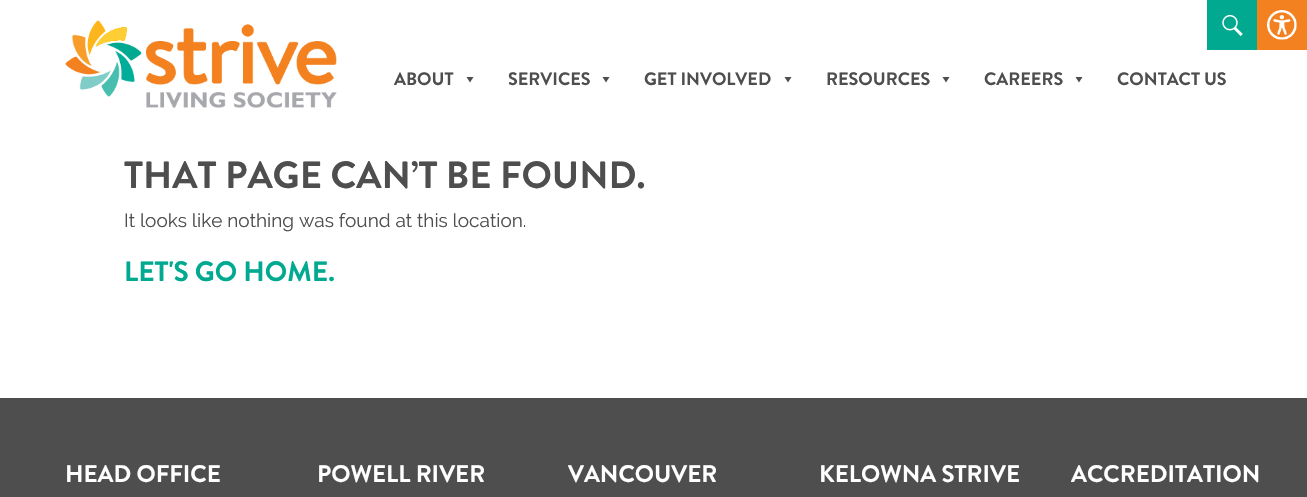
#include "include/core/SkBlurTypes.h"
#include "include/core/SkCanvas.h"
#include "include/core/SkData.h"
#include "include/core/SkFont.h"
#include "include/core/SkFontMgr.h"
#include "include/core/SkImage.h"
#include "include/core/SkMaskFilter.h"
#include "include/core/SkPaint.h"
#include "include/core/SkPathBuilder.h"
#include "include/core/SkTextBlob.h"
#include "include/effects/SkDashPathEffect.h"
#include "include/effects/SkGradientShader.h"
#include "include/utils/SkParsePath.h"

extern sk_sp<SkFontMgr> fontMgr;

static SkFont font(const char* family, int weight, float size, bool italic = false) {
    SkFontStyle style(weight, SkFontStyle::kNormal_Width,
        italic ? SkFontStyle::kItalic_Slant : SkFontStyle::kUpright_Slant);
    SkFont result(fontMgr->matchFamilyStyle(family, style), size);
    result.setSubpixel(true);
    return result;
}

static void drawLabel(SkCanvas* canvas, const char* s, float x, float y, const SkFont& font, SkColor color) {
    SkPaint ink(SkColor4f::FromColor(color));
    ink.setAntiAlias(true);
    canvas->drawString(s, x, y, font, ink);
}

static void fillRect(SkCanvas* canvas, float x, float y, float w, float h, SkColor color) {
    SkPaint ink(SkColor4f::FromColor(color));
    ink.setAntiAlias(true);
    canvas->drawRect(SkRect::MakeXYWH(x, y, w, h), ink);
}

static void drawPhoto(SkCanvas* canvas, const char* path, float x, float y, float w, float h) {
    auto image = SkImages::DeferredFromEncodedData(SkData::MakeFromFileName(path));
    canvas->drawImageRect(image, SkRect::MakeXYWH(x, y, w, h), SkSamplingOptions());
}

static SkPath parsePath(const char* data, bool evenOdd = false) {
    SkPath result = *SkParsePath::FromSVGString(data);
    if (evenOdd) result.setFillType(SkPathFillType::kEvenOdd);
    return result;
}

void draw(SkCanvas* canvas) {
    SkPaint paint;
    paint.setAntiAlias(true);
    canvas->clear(0xFFFFFFFF);
    fillRect(canvas, 1207, 0, 50, 50, 0xFF00A98F);
    drawPhoto(canvas, "assets/img1.png", 1222, 15, 21, 21);
    fillRect(canvas, 1257, 0, 50, 50, 0xFFF48120);
    drawPhoto(canvas, "assets/img2.png", 1267, 10, 30, 30);
    drawPhoto(canvas, "assets/img3.png", 65, 20, 272, 88);
    SkFont font1 = font("Brandon Grotesque", 700, 18);
    drawLabel(canvas, "ABOUT", 394, 85, font1, 0xFF4E4E4E);
    paint.setColor(0xFF4E4E4E);
    canvas->drawPath(parsePath("M473.5 77L470 82.5L466.5 77Z"), paint);
    drawLabel(canvas, "SERVICES", 508, 85, font1, 0xFF4E4E4E);
    canvas->drawPath(parsePath("M609.5 77L606 82.5L602.5 77Z"), paint);
    drawLabel(canvas, "GET INVOLVED", 644, 85, font1, 0xFF4E4E4E);
    canvas->drawPath(parsePath("M791.5 77L788 82.5L784.5 77Z"), paint);
    drawLabel(canvas, "RESOURCES", 826, 85, font1, 0xFF4E4E4E);
    canvas->drawPath(parsePath("M949.5 77L946 82.5L942.5 77Z"), paint);
    drawLabel(canvas, "CAREERS", 984, 85, font1, 0xFF4E4E4E);
    canvas->drawPath(parsePath("M1082.5 77L1079 82.5L1075.5 77Z"), paint);
    drawLabel(canvas, "CONTACT US", 1117, 85, font1, 0xFF4E4E4E);
    SkFont font2 = font("Brandon Grotesque", 700, 38);
    drawLabel(canvas, "THAT PAGE CAN’T BE FOUND.", 124, 188, font2, 0xFF4E4E4E);
    SkFont font3 = font("Raleway", 400, 19);
    drawLabel(canvas, "It looks like nothing was found at this location.", 124, 227, font3, 0xFF4E4E4E);
    SkFont font4 = font("Brandon Grotesque", 700, 28);
    drawLabel(canvas, "LET'S GO HOME.", 124, 281, font4, 0xFF00A98F);
    fillRect(canvas, 0, 398, 1307, 99, 0xFF4E4E4E);
    SkFont font5 = font("Brandon Grotesque", 700, 24);
    drawLabel(canvas, "HEAD OFFICE", 65, 482, font5, 0xFFFFFFFF);
    drawLabel(canvas, "POWELL RIVER", 317, 482, font5, 0xFFFFFFFF);
    drawLabel(canvas, "VANCOUVER", 568, 482, font5, 0xFFFFFFFF);
    drawLabel(canvas, "KELOWNA STRIVE", 819, 482, font5, 0xFFFFFFFF);
    drawLabel(canvas, "ACCREDITATION", 1071, 482, font5, 0xFFFFFFFF);
}
